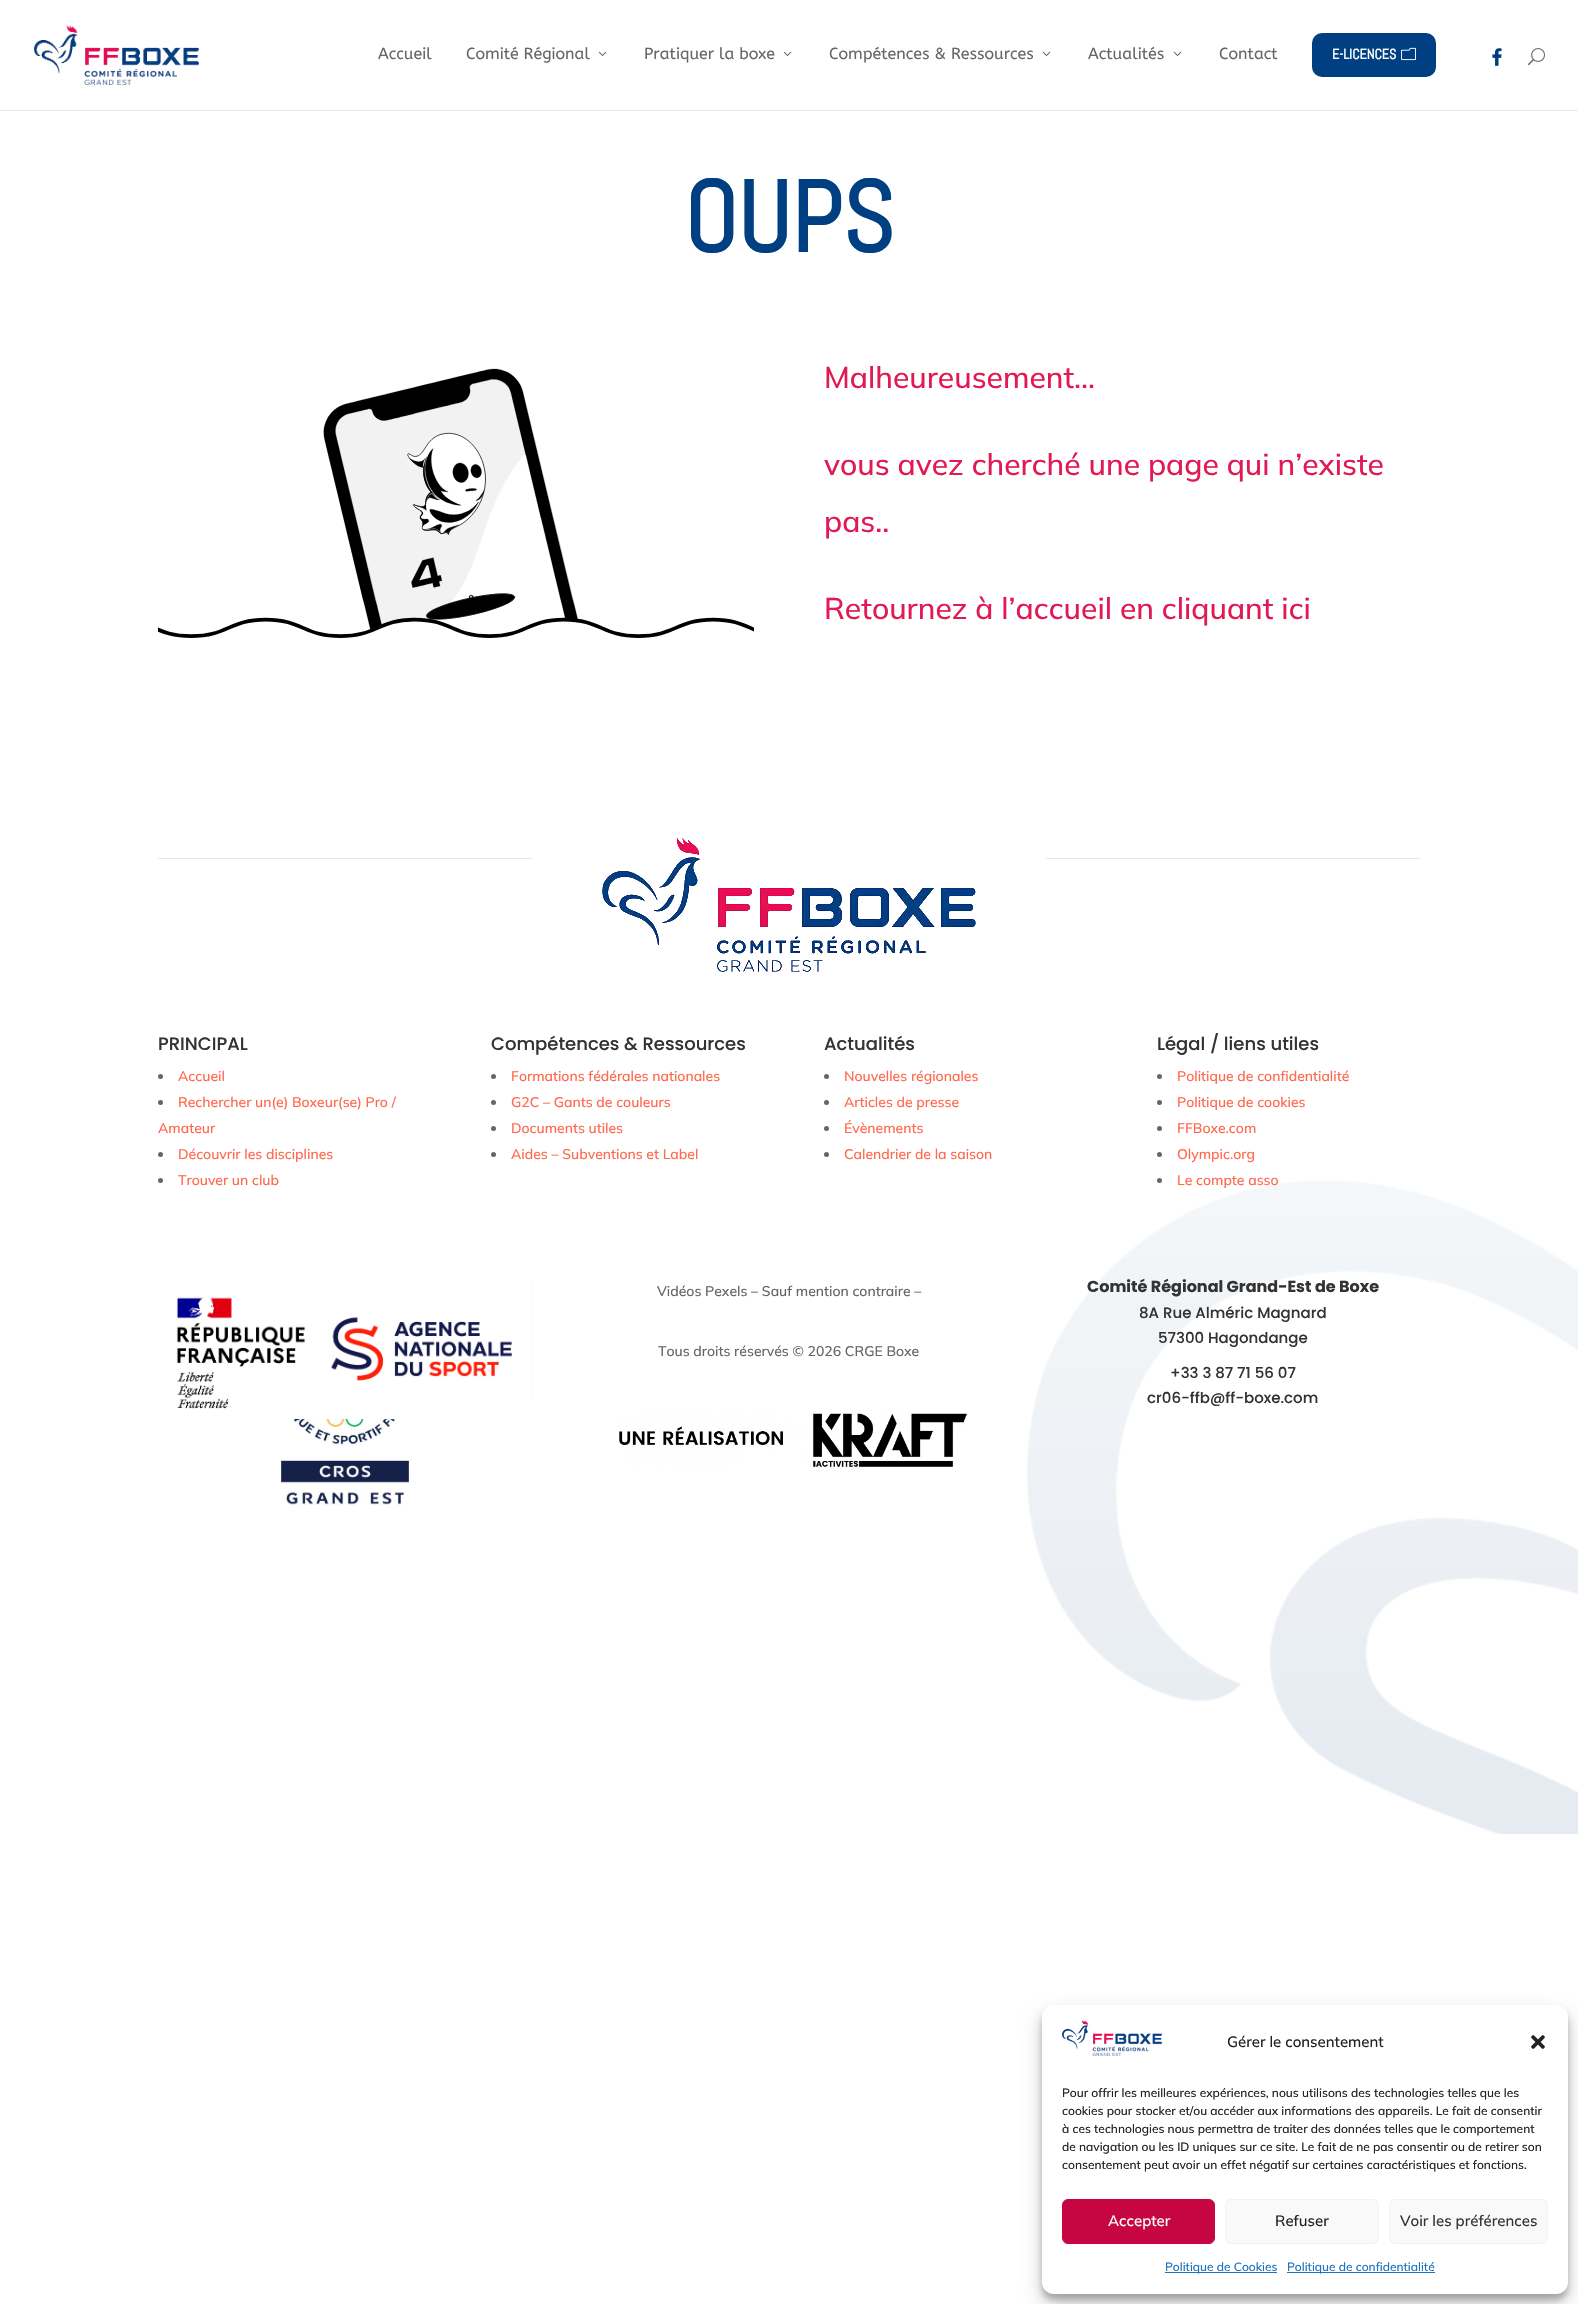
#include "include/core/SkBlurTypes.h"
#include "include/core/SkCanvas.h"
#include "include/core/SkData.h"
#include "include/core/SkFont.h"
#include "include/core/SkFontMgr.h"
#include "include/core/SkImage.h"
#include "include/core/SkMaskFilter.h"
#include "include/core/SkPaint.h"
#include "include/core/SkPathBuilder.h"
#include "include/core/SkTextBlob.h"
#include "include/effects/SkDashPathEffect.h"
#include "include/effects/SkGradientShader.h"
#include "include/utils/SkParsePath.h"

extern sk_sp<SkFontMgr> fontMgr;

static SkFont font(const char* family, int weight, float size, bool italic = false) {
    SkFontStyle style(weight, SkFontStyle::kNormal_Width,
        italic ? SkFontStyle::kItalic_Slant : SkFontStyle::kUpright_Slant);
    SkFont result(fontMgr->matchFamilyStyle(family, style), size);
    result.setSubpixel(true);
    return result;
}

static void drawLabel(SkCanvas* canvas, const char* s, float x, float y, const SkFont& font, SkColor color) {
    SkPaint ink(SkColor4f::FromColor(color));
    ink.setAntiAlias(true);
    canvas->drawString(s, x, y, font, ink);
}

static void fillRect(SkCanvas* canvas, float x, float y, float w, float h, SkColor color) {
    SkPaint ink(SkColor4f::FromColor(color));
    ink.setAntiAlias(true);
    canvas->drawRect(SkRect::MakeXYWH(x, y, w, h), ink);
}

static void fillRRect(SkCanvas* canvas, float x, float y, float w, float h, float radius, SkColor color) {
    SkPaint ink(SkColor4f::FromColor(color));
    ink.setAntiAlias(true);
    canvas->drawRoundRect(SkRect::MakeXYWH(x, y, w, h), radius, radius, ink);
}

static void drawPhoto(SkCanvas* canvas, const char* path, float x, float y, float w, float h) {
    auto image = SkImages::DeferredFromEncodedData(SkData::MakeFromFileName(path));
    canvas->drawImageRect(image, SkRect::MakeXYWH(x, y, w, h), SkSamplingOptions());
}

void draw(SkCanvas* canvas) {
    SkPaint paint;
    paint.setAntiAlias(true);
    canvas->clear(0xFFFFFFFF);
    fillRect(canvas, 0, 110, 1578, 1, 0xFFE6E6E6);
    drawPhoto(canvas, "assets/img1.png", 34, 25, 165, 60);
    SkFont font1 = font("ABeeZee", 400, 16);
    drawLabel(canvas, "Accueil", 378, 59, font1, 0xFF666666);
    drawLabel(canvas, "Comité Régional", 466, 59, font1, 0xFF666666);
    drawPhoto(canvas, "assets/img2.png", 598, 51, 9, 5);
    drawLabel(canvas, "Pratiquer la boxe", 644, 59, font1, 0xFF666666);
    drawPhoto(canvas, "assets/img2.png", 783, 51, 9, 5);
    drawLabel(canvas, "Compétences & Ressources", 829, 59, font1, 0xFF666666);
    drawPhoto(canvas, "assets/img2.png", 1042, 51, 9, 5);
    drawLabel(canvas, "Actualités", 1088, 59, font1, 0xFF666666);
    drawPhoto(canvas, "assets/img2.png", 1173, 51, 9, 5);
    drawLabel(canvas, "Contact", 1219, 59, font1, 0xFF666666);
    fillRRect(canvas, 1312, 33, 124, 44, 10, 0xFF004082);
    SkFont font2 = font("Abel", 700, 14);
    drawLabel(canvas, "E-LICENCES", 1332, 59, font2, 0xFFFFFFFF);
    drawPhoto(canvas, "assets/img3.png", 1401, 47, 15, 14);
    drawPhoto(canvas, "assets/img4.png", 1492, 48, 10, 18);
    drawPhoto(canvas, "assets/img5.png", 1528, 48, 17, 18);
    SkFont font3 = font("Abel", 700, 100);
    drawLabel(canvas, "OUPS", 684, 252, font3, 0xFF004082);
    drawPhoto(canvas, "assets/img6.png", 158, 368, 596, 270);
    SkFont font4 = font("Mulish", 200, 30);
    drawLabel(canvas, "Malheureusement…", 824, 388, font4, 0xFFE11955);
    drawLabel(canvas, "vous avez cherché une page qui n’existe", 824, 475, font4, 0xFFE11955);
    drawLabel(canvas, "pas..", 824, 532, font4, 0xFFE11955);
    drawLabel(canvas, "Retournez à l’accueil en cliquant ici", 824, 619, font4, 0xFFE11955);
    fillRect(canvas, 158, 858, 374, 1, 0xFFE6E6E6);
    drawPhoto(canvas, "assets/img7.png", 602, 838, 374, 134);
    fillRect(canvas, 1046, 858, 374, 1, 0xFFE6E6E6);
    SkFont font5 = font("Poppins", 500, 18);
    drawLabel(canvas, "PRINCIPAL", 158, 1050, font5, 0xFF333333);
    paint.setColor(0xFF666666);
    canvas->drawCircle(160.5f, 1076.5f, 2.5f, paint);
    SkFont font6 = font("Mulish", 200, 14);
    drawLabel(canvas, "Accueil", 178, 1081, font6, 0xFFFF684C);
    canvas->drawCircle(160.5f, 1102.5f, 2.5f, paint);
    drawLabel(canvas, "Rechercher un(e) Boxeur(se) Pro /", 178, 1107, font6, 0xFFFF684C);
    drawLabel(canvas, "Amateur", 158, 1133, font6, 0xFFFF684C);
    canvas->drawCircle(160.5f, 1154.5f, 2.5f, paint);
    drawLabel(canvas, "Découvrir les disciplines", 178, 1159, font6, 0xFFFF684C);
    canvas->drawCircle(160.5f, 1180.5f, 2.5f, paint);
    drawLabel(canvas, "Trouver un club", 178, 1185, font6, 0xFFFF684C);
    drawLabel(canvas, "Compétences & Ressources", 491, 1050, font5, 0xFF333333);
    canvas->drawCircle(493.5f, 1076.5f, 2.5f, paint);
    drawLabel(canvas, "Formations fédérales nationales", 511, 1081, font6, 0xFFFF684C);
    canvas->drawCircle(493.5f, 1102.5f, 2.5f, paint);
    drawLabel(canvas, "G2C – Gants de couleurs", 511, 1107, font6, 0xFFFF684C);
    canvas->drawCircle(493.5f, 1128.5f, 2.5f, paint);
    drawLabel(canvas, "Documents utiles", 511, 1133, font6, 0xFFFF684C);
    canvas->drawCircle(493.5f, 1154.5f, 2.5f, paint);
    drawLabel(canvas, "Aides – Subventions et Label", 511, 1159, font6, 0xFFFF684C);
    drawLabel(canvas, "Actualités", 824, 1050, font5, 0xFF333333);
    canvas->drawCircle(826.5f, 1076.5f, 2.5f, paint);
    drawLabel(canvas, "Nouvelles régionales", 844, 1081, font6, 0xFFFF684C);
    canvas->drawCircle(826.5f, 1102.5f, 2.5f, paint);
    drawLabel(canvas, "Articles de presse", 844, 1107, font6, 0xFFFF684C);
    canvas->drawCircle(826.5f, 1128.5f, 2.5f, paint);
    drawLabel(canvas, "Évènements", 844, 1133, font6, 0xFFFF684C);
    canvas->drawCircle(826.5f, 1154.5f, 2.5f, paint);
    drawLabel(canvas, "Calendrier de la saison", 844, 1159, font6, 0xFFFF684C);
    drawLabel(canvas, "Légal / liens utiles", 1157, 1050, font5, 0xFF333333);
    canvas->drawCircle(1159.5f, 1076.5f, 2.5f, paint);
    drawLabel(canvas, "Politique de confidentialité", 1177, 1081, font6, 0xFFFF684C);
    canvas->drawCircle(1159.5f, 1102.5f, 2.5f, paint);
    drawLabel(canvas, "Politique de cookies", 1177, 1107, font6, 0xFFFF684C);
    canvas->drawCircle(1159.5f, 1128.5f, 2.5f, paint);
    drawLabel(canvas, "FFBoxe.com", 1177, 1133, font6, 0xFFFF684C);
    canvas->drawCircle(1159.5f, 1154.5f, 2.5f, paint);
    drawLabel(canvas, "Olympic.org", 1177, 1159, font6, 0xFFFF684C);
    drawPhoto(canvas, "assets/img8.png", 1026, 1179, 552, 655);
    {
        const SkColor colors[] = {0xFFFFFFFF, 0xE3FFFFFF};
        const float stops[] = {0, 0.98f};
        const SkPoint ends[] = {{789, 742}, {789, 1834}};
        paint.setShader(SkGradientShader::MakeLinear(ends, colors, stops, 2, SkTileMode::kClamp));
        paint.setAlpha(255);
    }
    canvas->drawRect(SkRect::MakeXYWH(1026, 1179, 552, 655), paint);
    paint.setShader(nullptr);
    paint.setColor(0xFF666666);
    canvas->drawCircle(1159.5f, 1180.5f, 2.5f, paint);
    drawLabel(canvas, "Le compte asso", 1177, 1185, font6, 0xFFFF684C);
    drawPhoto(canvas, "assets/img9.png", 158, 1279, 374, 226);
    drawPhoto(canvas, "assets/img11.png", 532, 1279, 1, 121);
    drawPhoto(canvas, "assets/img10.png", 176, 1279, 357, 140);
    drawLabel(canvas, "Vidéos Pexels – Sauf mention contraire –", 657, 1296, font6, 0xFF666666);
    drawLabel(canvas, "Tous droits réservés © 2026 CRGE Boxe", 658, 1356, font6, 0xFF666666);
    drawPhoto(canvas, "assets/img12.png", 619, 1413, 348, 54);
    SkFont font7 = font("Poppins", 700, 16);
    drawLabel(canvas, "Comité Régional Grand-Est de Boxe", 1087, 1292, font7, 0xFF333333);
    SkFont font8 = font("Poppins", 500, 15);
    drawLabel(canvas, "8A Rue Alméric Magnard", 1139, 1318, font8, 0xFF333333);
    drawLabel(canvas, "57300 Hagondange", 1158, 1343, font8, 0xFF333333);
    drawLabel(canvas, "+33 3 87 71 56 07", 1170, 1378, font8, 0xFF333333);
    drawLabel(canvas, "cr06-ffb@ff-boxe.com", 1147, 1403, font8, 0xFF333333);
    paint.setColor(0x3B000000);
    paint.setMaskFilter(SkMaskFilter::MakeBlur(kNormal_SkBlurStyle, 3));
    canvas->drawRoundRect(SkRect::MakeXYWH(1042, 2011, 526, 289), 12, 12, paint);
    paint.setMaskFilter(nullptr);
    paint.setColor(0x30000000);
    paint.setMaskFilter(SkMaskFilter::MakeBlur(kNormal_SkBlurStyle, 10));
    canvas->drawRoundRect(SkRect::MakeXYWH(1042, 2015, 526, 289), 12, 12, paint);
    paint.setMaskFilter(nullptr);
    fillRRect(canvas, 1042, 2005, 526, 289, 12, 0xFFFFFFFF);
    drawPhoto(canvas, "assets/img13.png", 1062, 2020, 100, 36);
    SkFont font9 = font("Mulish", 200, 15);
    drawLabel(canvas, "Gérer le consentement", 1227, 2047, font9, 0xFF222222);
    drawPhoto(canvas, "assets/img14.png", 1531, 2035, 14, 14);
    SkFont font10 = font("Mulish", 200, 12);
    drawLabel(canvas, "Pour offrir les meilleures expériences, nous utilisons des technologies telles que les", 1062, 2097, font10, 0xFF222222);
    drawLabel(canvas, "cookies pour stocker et/ou accéder aux informations des appareils. Le fait de consentir", 1062, 2115, font10, 0xFF222222);
    drawLabel(canvas, "à ces technologies nous permettra de traiter des données telles que le comportement", 1062, 2133, font10, 0xFF222222);
    drawLabel(canvas, "de navigation ou les ID uniques sur ce site. Le fait de ne pas consentir ou de retirer son", 1062, 2151, font10, 0xFF222222);
    drawLabel(canvas, "consentement peut avoir un effet négatif sur certaines caractéristiques et fonctions.", 1062, 2169, font10, 0xFF222222);
    paint.setColor(0xFFC50642);
    canvas->drawRoundRect(SkRect::MakeXYWH(1062.5f, 2199.5f, 152, 44), 5.5f, 5.5f, paint);
    paint.setStroke(true);
    paint.setStrokeWidth(1);
    canvas->drawRoundRect(SkRect::MakeXYWH(1062.5f, 2199.5f, 152, 44), 5.5f, 5.5f, paint);
    drawLabel(canvas, "Accepter", 1108, 2226, font9, 0xFFFFFFFF);
    paint.setStroke(false);
    paint.setColor(0xFFF9F9F9);
    canvas->drawRoundRect(SkRect::MakeXYWH(1225.5f, 2199.5f, 153, 44), 5.5f, 5.5f, paint);
    paint.setStroke(true);
    paint.setColor(0xFFF2F2F2);
    canvas->drawRoundRect(SkRect::MakeXYWH(1225.5f, 2199.5f, 153, 44), 5.5f, 5.5f, paint);
    drawLabel(canvas, "Refuser", 1275, 2226, font9, 0xFF222222);
    paint.setStroke(false);
    paint.setColor(0xFFF9F9F9);
    canvas->drawRoundRect(SkRect::MakeXYWH(1389.5f, 2199.5f, 158, 44), 5.5f, 5.5f, paint);
    paint.setStroke(true);
    paint.setColor(0xFFF2F2F2);
    canvas->drawRoundRect(SkRect::MakeXYWH(1389.5f, 2199.5f, 158, 44), 5.5f, 5.5f, paint);
    drawLabel(canvas, "Voir les préférences", 1400, 2226, font9, 0xFF333333);
    fillRect(canvas, 1165, 2272, 112, 1, 0xFF1E73BE);
    drawLabel(canvas, "Politique de Cookies", 1165, 2271, font10, 0xFF1E73BE);
    fillRect(canvas, 1287, 2272, 148, 1, 0xFF1E73BE);
    drawLabel(canvas, "Politique de confidentialité", 1287, 2271, font10, 0xFF1E73BE);
}
